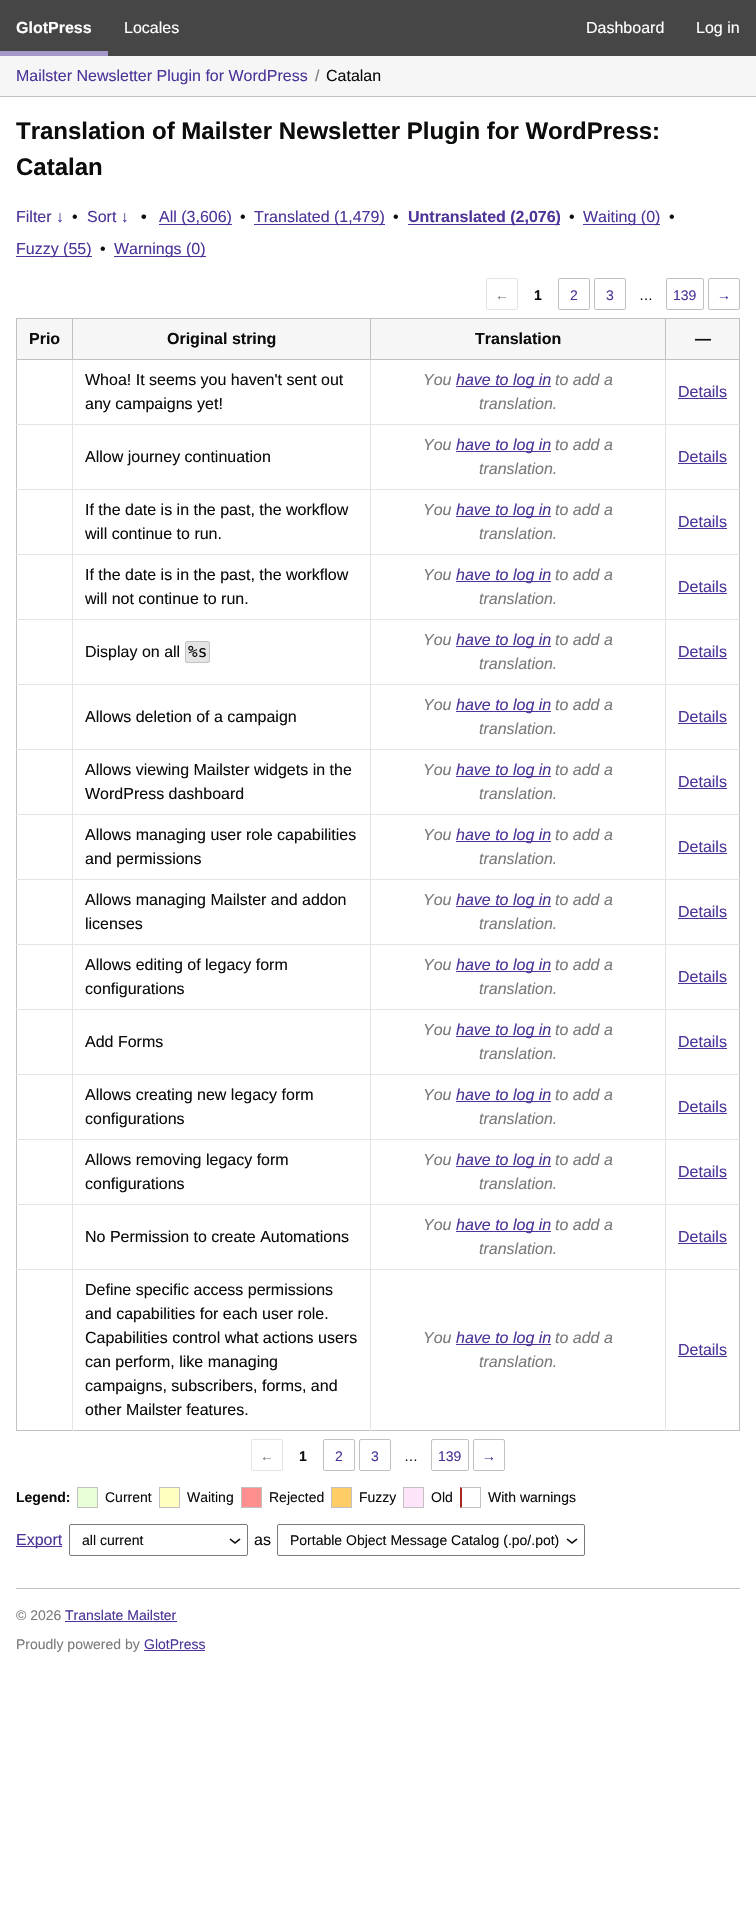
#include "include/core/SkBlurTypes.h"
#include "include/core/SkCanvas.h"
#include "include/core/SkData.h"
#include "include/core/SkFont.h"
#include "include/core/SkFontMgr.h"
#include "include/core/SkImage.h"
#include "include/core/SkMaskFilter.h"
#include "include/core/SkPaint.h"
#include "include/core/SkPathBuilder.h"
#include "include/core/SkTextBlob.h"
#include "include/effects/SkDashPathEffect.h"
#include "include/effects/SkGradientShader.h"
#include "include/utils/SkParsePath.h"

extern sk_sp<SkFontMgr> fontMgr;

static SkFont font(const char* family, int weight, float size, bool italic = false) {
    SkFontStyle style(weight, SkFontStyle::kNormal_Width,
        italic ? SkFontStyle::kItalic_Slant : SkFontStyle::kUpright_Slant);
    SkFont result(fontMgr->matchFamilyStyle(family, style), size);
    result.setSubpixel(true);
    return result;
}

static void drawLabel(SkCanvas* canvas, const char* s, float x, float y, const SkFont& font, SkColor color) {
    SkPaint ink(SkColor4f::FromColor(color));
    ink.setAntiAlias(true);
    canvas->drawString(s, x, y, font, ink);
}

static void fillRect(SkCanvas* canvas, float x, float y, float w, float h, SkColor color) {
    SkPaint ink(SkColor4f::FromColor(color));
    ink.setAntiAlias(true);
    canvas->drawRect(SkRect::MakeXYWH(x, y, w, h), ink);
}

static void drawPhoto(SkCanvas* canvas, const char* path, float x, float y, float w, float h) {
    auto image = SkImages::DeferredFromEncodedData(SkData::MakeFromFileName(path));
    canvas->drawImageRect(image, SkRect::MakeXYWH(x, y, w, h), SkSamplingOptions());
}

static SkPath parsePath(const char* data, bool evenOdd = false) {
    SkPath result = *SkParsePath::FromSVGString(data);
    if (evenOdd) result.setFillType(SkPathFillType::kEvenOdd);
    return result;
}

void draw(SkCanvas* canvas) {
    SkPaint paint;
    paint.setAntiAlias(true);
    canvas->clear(0xFFFFFFFF);
    fillRect(canvas, 0, 0, 756, 56, 0xFF464646);
    fillRect(canvas, 0, 51, 108, 5, 0xFFA597C9);
    SkFont font1 = font("Liberation Sans", 700, 16);
    drawLabel(canvas, "GlotPress", 16, 33, font1, 0xFFFFFFFF);
    SkFont font2 = font("Liberation Sans", 400, 16);
    drawLabel(canvas, "Locales", 124, 33, font2, 0xFFFFFFFF);
    drawLabel(canvas, "Dashboard", 586, 33, font2, 0xFFFFFFFF);
    drawLabel(canvas, "Log in", 696, 33, font2, 0xFFFFFFFF);
    fillRect(canvas, 0, 56, 756, 40, 0xFFF6F6F6);
    fillRect(canvas, 0, 96, 756, 1, 0xFFC1C1C1);
    drawLabel(canvas, "Mailster Newsletter Plugin for WordPress", 16, 81, font2, 0xFF4E3499);
    drawLabel(canvas, "/", 315, 81, font2, 0xFF7A7A7A);
    drawLabel(canvas, "Catalan", 326, 81, font2, 0xFF0B0C0C);
    SkFont font3 = font("Liberation Sans", 700, 24);
    drawLabel(canvas, "Translation of Mailster Newsletter Plugin for WordPress:", 16, 139, font3, 0xFF0B0C0C);
    drawLabel(canvas, "Catalan", 16, 175, font3, 0xFF0B0C0C);
    drawLabel(canvas, "Filter ↓", 16, 222, font2, 0xFF4E3499);
    drawLabel(canvas, "•", 72, 222, font2, 0xFF0B0C0C);
    drawLabel(canvas, "Sort ↓", 87, 222, font2, 0xFF4E3499);
    drawLabel(canvas, "•", 141, 222, font1, 0xFF0B0C0C);
    fillRect(canvas, 159, 224, 73, 1, 0xFF4E3499);
    drawLabel(canvas, "All (3,606)", 159, 222, font2, 0xFF4E3499);
    drawLabel(canvas, "•", 240, 222, font2, 0xFF0B0C0C);
    fillRect(canvas, 254, 224, 131, 1, 0xFF4E3499);
    drawLabel(canvas, "Translated (1,479)", 254, 222, font2, 0xFF4E3499);
    drawLabel(canvas, "•", 393, 222, font2, 0xFF0B0C0C);
    fillRect(canvas, 408, 224, 152, 1, 0xFF4E3499);
    drawLabel(canvas, "Untranslated (2,076)", 408, 222, font1, 0xFF4E3499);
    drawLabel(canvas, "•", 569, 222, font2, 0xFF0B0C0C);
    fillRect(canvas, 583, 224, 77, 1, 0xFF4E3499);
    drawLabel(canvas, "Waiting (0)", 583, 222, font2, 0xFF4E3499);
    drawLabel(canvas, "•", 669, 222, font2, 0xFF0B0C0C);
    fillRect(canvas, 16, 256, 76, 1, 0xFF4E3499);
    drawLabel(canvas, "Fuzzy (55)", 16, 254, font2, 0xFF4E3499);
    drawLabel(canvas, "•", 100, 254, font2, 0xFF0B0C0C);
    fillRect(canvas, 114, 256, 92, 1, 0xFF4E3499);
    drawLabel(canvas, "Warnings (0)", 114, 254, font2, 0xFF4E3499);
    paint.setStroke(true);
    paint.setStrokeWidth(1);
    paint.setColor(0xFFE4E4E4);
    canvas->drawRoundRect(SkRect::MakeXYWH(486.5f, 278.5f, 31, 31), 1.5f, 1.5f, paint);
    SkFont font4 = font("Liberation Sans", 400, 14);
    drawLabel(canvas, "←", 495, 300, font4, 0xFF7A7A7A);
    SkFont font5 = font("Liberation Sans", 700, 14);
    drawLabel(canvas, "1", 534, 300, font5, 0xFF0B0C0C);
    paint.setColor(0xFFC1C1C1);
    canvas->drawRoundRect(SkRect::MakeXYWH(558.5f, 278.5f, 31, 31), 1.5f, 1.5f, paint);
    drawLabel(canvas, "2", 570, 300, font4, 0xFF4E3499);
    canvas->drawRoundRect(SkRect::MakeXYWH(594.5f, 278.5f, 31, 31), 1.5f, 1.5f, paint);
    drawLabel(canvas, "3", 606, 300, font4, 0xFF4E3499);
    drawLabel(canvas, "…", 639, 300, font4, 0xFF0B0C0C);
    canvas->drawRoundRect(SkRect::MakeXYWH(666.5f, 278.5f, 37, 31), 1.5f, 1.5f, paint);
    drawLabel(canvas, "139", 673, 300, font4, 0xFF4E3499);
    canvas->drawRoundRect(SkRect::MakeXYWH(708.5f, 278.5f, 31, 31), 1.5f, 1.5f, paint);
    drawLabel(canvas, "→", 717, 300, font4, 0xFF4E3499);
    fillRect(canvas, 16, 318, 724, 1, 0xFFC1C1C1);
    fillRect(canvas, 739, 318, 1, 1113, 0xFFC1C1C1);
    fillRect(canvas, 16, 1430, 724, 1, 0xFFC1C1C1);
    fillRect(canvas, 16, 318, 1, 1113, 0xFFC1C1C1);
    fillRect(canvas, 17, 319, 55, 40, 0xFFF6F6F6);
    fillRect(canvas, 665, 424, 75, 1, 0xFFE4E4E4);
    fillRect(canvas, 665, 489, 75, 1, 0xFFE4E4E4);
    fillRect(canvas, 665, 554, 75, 1, 0xFFE4E4E4);
    fillRect(canvas, 665, 619, 75, 1, 0xFFE4E4E4);
    fillRect(canvas, 665, 684, 75, 1, 0xFFE4E4E4);
    fillRect(canvas, 665, 749, 75, 1, 0xFFE4E4E4);
    fillRect(canvas, 665, 814, 75, 1, 0xFFE4E4E4);
    fillRect(canvas, 665, 879, 75, 1, 0xFFE4E4E4);
    fillRect(canvas, 665, 944, 75, 1, 0xFFE4E4E4);
    fillRect(canvas, 665, 1009, 75, 1, 0xFFE4E4E4);
    fillRect(canvas, 665, 1074, 75, 1, 0xFFE4E4E4);
    fillRect(canvas, 665, 1139, 75, 1, 0xFFE4E4E4);
    fillRect(canvas, 665, 1204, 75, 1, 0xFFE4E4E4);
    fillRect(canvas, 665, 1269, 75, 1, 0xFFE4E4E4);
    fillRect(canvas, 665, 1269, 1, 162, 0xFFE4E4E4);
    fillRect(canvas, 370, 1269, 296, 1, 0xFFE4E4E4);
    fillRect(canvas, 665, 1204, 1, 66, 0xFFE4E4E4);
    fillRect(canvas, 370, 1204, 296, 1, 0xFFE4E4E4);
    fillRect(canvas, 665, 1139, 1, 66, 0xFFE4E4E4);
    fillRect(canvas, 370, 1139, 296, 1, 0xFFE4E4E4);
    fillRect(canvas, 665, 1074, 1, 66, 0xFFE4E4E4);
    fillRect(canvas, 370, 1074, 296, 1, 0xFFE4E4E4);
    fillRect(canvas, 665, 1009, 1, 66, 0xFFE4E4E4);
    fillRect(canvas, 370, 1009, 296, 1, 0xFFE4E4E4);
    fillRect(canvas, 665, 944, 1, 66, 0xFFE4E4E4);
    fillRect(canvas, 370, 944, 296, 1, 0xFFE4E4E4);
    fillRect(canvas, 665, 879, 1, 66, 0xFFE4E4E4);
    fillRect(canvas, 370, 879, 296, 1, 0xFFE4E4E4);
    fillRect(canvas, 665, 814, 1, 66, 0xFFE4E4E4);
    fillRect(canvas, 370, 814, 296, 1, 0xFFE4E4E4);
    fillRect(canvas, 665, 749, 1, 66, 0xFFE4E4E4);
    fillRect(canvas, 370, 749, 296, 1, 0xFFE4E4E4);
    fillRect(canvas, 665, 684, 1, 66, 0xFFE4E4E4);
    fillRect(canvas, 370, 684, 296, 1, 0xFFE4E4E4);
    fillRect(canvas, 665, 619, 1, 66, 0xFFE4E4E4);
    fillRect(canvas, 370, 619, 296, 1, 0xFFE4E4E4);
    fillRect(canvas, 665, 554, 1, 66, 0xFFE4E4E4);
    fillRect(canvas, 370, 554, 296, 1, 0xFFE4E4E4);
    fillRect(canvas, 665, 489, 1, 66, 0xFFE4E4E4);
    fillRect(canvas, 370, 489, 296, 1, 0xFFE4E4E4);
    fillRect(canvas, 665, 424, 1, 66, 0xFFE4E4E4);
    fillRect(canvas, 370, 424, 296, 1, 0xFFE4E4E4);
    fillRect(canvas, 665, 359, 1, 66, 0xFFE4E4E4);
    fillRect(canvas, 665, 359, 75, 1, 0xFFC1C1C1);
    fillRect(canvas, 665, 318, 1, 42, 0xFFC1C1C1);
    fillRect(canvas, 370, 1269, 1, 162, 0xFFE4E4E4);
    fillRect(canvas, 72, 1269, 299, 1, 0xFFE4E4E4);
    fillRect(canvas, 370, 1204, 1, 66, 0xFFE4E4E4);
    fillRect(canvas, 72, 1204, 299, 1, 0xFFE4E4E4);
    fillRect(canvas, 370, 1139, 1, 66, 0xFFE4E4E4);
    fillRect(canvas, 72, 1139, 299, 1, 0xFFE4E4E4);
    fillRect(canvas, 370, 1074, 1, 66, 0xFFE4E4E4);
    fillRect(canvas, 72, 1074, 299, 1, 0xFFE4E4E4);
    fillRect(canvas, 370, 1009, 1, 66, 0xFFE4E4E4);
    fillRect(canvas, 72, 1009, 299, 1, 0xFFE4E4E4);
    fillRect(canvas, 370, 944, 1, 66, 0xFFE4E4E4);
    fillRect(canvas, 72, 944, 299, 1, 0xFFE4E4E4);
    fillRect(canvas, 370, 879, 1, 66, 0xFFE4E4E4);
    fillRect(canvas, 72, 879, 299, 1, 0xFFE4E4E4);
    fillRect(canvas, 370, 814, 1, 66, 0xFFE4E4E4);
    fillRect(canvas, 72, 814, 299, 1, 0xFFE4E4E4);
    fillRect(canvas, 370, 749, 1, 66, 0xFFE4E4E4);
    fillRect(canvas, 72, 749, 299, 1, 0xFFE4E4E4);
    fillRect(canvas, 370, 684, 1, 66, 0xFFE4E4E4);
    fillRect(canvas, 72, 684, 299, 1, 0xFFE4E4E4);
    fillRect(canvas, 370, 619, 1, 66, 0xFFE4E4E4);
    fillRect(canvas, 72, 619, 299, 1, 0xFFE4E4E4);
    fillRect(canvas, 370, 554, 1, 66, 0xFFE4E4E4);
    fillRect(canvas, 72, 554, 299, 1, 0xFFE4E4E4);
    fillRect(canvas, 370, 489, 1, 66, 0xFFE4E4E4);
    fillRect(canvas, 72, 489, 299, 1, 0xFFE4E4E4);
    fillRect(canvas, 370, 424, 1, 66, 0xFFE4E4E4);
    fillRect(canvas, 72, 424, 299, 1, 0xFFE4E4E4);
    fillRect(canvas, 370, 359, 1, 66, 0xFFE4E4E4);
    fillRect(canvas, 370, 359, 296, 1, 0xFFC1C1C1);
    fillRect(canvas, 370, 318, 1, 42, 0xFFC1C1C1);
    fillRect(canvas, 72, 1269, 1, 162, 0xFFE4E4E4);
    fillRect(canvas, 16, 1269, 57, 1, 0xFFE4E4E4);
    fillRect(canvas, 72, 1204, 1, 66, 0xFFE4E4E4);
    fillRect(canvas, 16, 1204, 57, 1, 0xFFE4E4E4);
    fillRect(canvas, 72, 1139, 1, 66, 0xFFE4E4E4);
    fillRect(canvas, 16, 1139, 57, 1, 0xFFE4E4E4);
    fillRect(canvas, 72, 1074, 1, 66, 0xFFE4E4E4);
    fillRect(canvas, 16, 1074, 57, 1, 0xFFE4E4E4);
    fillRect(canvas, 72, 1009, 1, 66, 0xFFE4E4E4);
    fillRect(canvas, 16, 1009, 57, 1, 0xFFE4E4E4);
    fillRect(canvas, 72, 944, 1, 66, 0xFFE4E4E4);
    fillRect(canvas, 16, 944, 57, 1, 0xFFE4E4E4);
    fillRect(canvas, 72, 879, 1, 66, 0xFFE4E4E4);
    fillRect(canvas, 16, 879, 57, 1, 0xFFE4E4E4);
    fillRect(canvas, 72, 814, 1, 66, 0xFFE4E4E4);
    fillRect(canvas, 16, 814, 57, 1, 0xFFE4E4E4);
    fillRect(canvas, 72, 749, 1, 66, 0xFFE4E4E4);
    fillRect(canvas, 16, 749, 57, 1, 0xFFE4E4E4);
    fillRect(canvas, 72, 684, 1, 66, 0xFFE4E4E4);
    fillRect(canvas, 16, 684, 57, 1, 0xFFE4E4E4);
    fillRect(canvas, 72, 619, 1, 66, 0xFFE4E4E4);
    fillRect(canvas, 16, 619, 57, 1, 0xFFE4E4E4);
    fillRect(canvas, 72, 554, 1, 66, 0xFFE4E4E4);
    fillRect(canvas, 16, 554, 57, 1, 0xFFE4E4E4);
    fillRect(canvas, 72, 489, 1, 66, 0xFFE4E4E4);
    fillRect(canvas, 16, 489, 57, 1, 0xFFE4E4E4);
    fillRect(canvas, 72, 424, 1, 66, 0xFFE4E4E4);
    fillRect(canvas, 16, 424, 57, 1, 0xFFE4E4E4);
    fillRect(canvas, 72, 359, 1, 66, 0xFFE4E4E4);
    fillRect(canvas, 72, 359, 299, 1, 0xFFC1C1C1);
    fillRect(canvas, 72, 318, 1, 42, 0xFFC1C1C1);
    fillRect(canvas, 16, 359, 57, 1, 0xFFC1C1C1);
    drawLabel(canvas, "Prio", 29, 344, font1, 0xFF0B0C0C);
    fillRect(canvas, 73, 319, 297, 40, 0xFFF6F6F6);
    drawLabel(canvas, "Original string", 167, 344, font1, 0xFF0B0C0C);
    fillRect(canvas, 371, 319, 294, 40, 0xFFF6F6F6);
    drawLabel(canvas, "Translation", 475, 344, font1, 0xFF0B0C0C);
    fillRect(canvas, 666, 319, 73, 40, 0xFFF6F6F6);
    drawLabel(canvas, "—", 695, 344, font1, 0xFF0B0C0C);
    drawLabel(canvas, "Whoa! It seems you haven't sent out", 85, 385, font2, 0xFF0B0C0C);
    drawLabel(canvas, "any campaigns yet!", 85, 409, font2, 0xFF0B0C0C);
    SkFont font6 = font("Liberation Sans", 400, 16, true);
    drawLabel(canvas, "You", 423, 385, font6, 0xFF7A7A7A);
    fillRect(canvas, 456, 386, 95, 1, 0xFF4E3499);
    drawLabel(canvas, "have to log in", 456, 385, font6, 0xFF4E3499);
    drawLabel(canvas, "to add a", 555, 385, font6, 0xFF7A7A7A);
    drawLabel(canvas, "translation.", 479, 409, font6, 0xFF7A7A7A);
    drawLabel(canvas, "Details", 678, 397, font2, 0xFF4E3499);
    fillRect(canvas, 678, 398, 49, 1, 0xFF4E3499);
    drawLabel(canvas, "Allow journey continuation", 85, 462, font2, 0xFF0B0C0C);
    drawLabel(canvas, "You", 423, 450, font6, 0xFF7A7A7A);
    fillRect(canvas, 456, 451, 95, 1, 0xFF4E3499);
    drawLabel(canvas, "have to log in", 456, 450, font6, 0xFF4E3499);
    drawLabel(canvas, "to add a", 555, 450, font6, 0xFF7A7A7A);
    drawLabel(canvas, "translation.", 479, 474, font6, 0xFF7A7A7A);
    drawLabel(canvas, "Details", 678, 462, font2, 0xFF4E3499);
    fillRect(canvas, 678, 463, 49, 1, 0xFF4E3499);
    drawLabel(canvas, "If the date is in the past, the workflow", 85, 515, font2, 0xFF0B0C0C);
    drawLabel(canvas, "will continue to run.", 85, 539, font2, 0xFF0B0C0C);
    drawLabel(canvas, "You", 423, 515, font6, 0xFF7A7A7A);
    fillRect(canvas, 456, 516, 95, 1, 0xFF4E3499);
    drawLabel(canvas, "have to log in", 456, 515, font6, 0xFF4E3499);
    drawLabel(canvas, "to add a", 555, 515, font6, 0xFF7A7A7A);
    drawLabel(canvas, "translation.", 479, 539, font6, 0xFF7A7A7A);
    drawLabel(canvas, "Details", 678, 527, font2, 0xFF4E3499);
    fillRect(canvas, 678, 528, 49, 1, 0xFF4E3499);
    drawLabel(canvas, "If the date is in the past, the workflow", 85, 580, font2, 0xFF0B0C0C);
    drawLabel(canvas, "will not continue to run.", 85, 604, font2, 0xFF0B0C0C);
    drawLabel(canvas, "You", 423, 580, font6, 0xFF7A7A7A);
    fillRect(canvas, 456, 581, 95, 1, 0xFF4E3499);
    drawLabel(canvas, "have to log in", 456, 580, font6, 0xFF4E3499);
    drawLabel(canvas, "to add a", 555, 580, font6, 0xFF7A7A7A);
    drawLabel(canvas, "translation.", 479, 604, font6, 0xFF7A7A7A);
    drawLabel(canvas, "Details", 678, 592, font2, 0xFF4E3499);
    fillRect(canvas, 678, 593, 49, 1, 0xFF4E3499);
    drawLabel(canvas, "Display on all", 85, 657, font2, 0xFF0B0C0C);
    paint.setStroke(false);
    paint.setColor(0xFFE4E4E4);
    canvas->drawRoundRect(SkRect::MakeXYWH(185.5f, 641.5f, 24, 21), 1.5f, 1.5f, paint);
    paint.setStroke(true);
    paint.setColor(0xFFC1C1C1);
    canvas->drawRoundRect(SkRect::MakeXYWH(185.5f, 641.5f, 24, 21), 1.5f, 1.5f, paint);
    SkFont font7 = font("DejaVu Sans Mono", 400, 16);
    drawLabel(canvas, "%s", 188, 657, font7, 0xFF0B0C0C);
    drawLabel(canvas, "You", 423, 645, font6, 0xFF7A7A7A);
    fillRect(canvas, 456, 646, 95, 1, 0xFF4E3499);
    drawLabel(canvas, "have to log in", 456, 645, font6, 0xFF4E3499);
    drawLabel(canvas, "to add a", 555, 645, font6, 0xFF7A7A7A);
    drawLabel(canvas, "translation.", 479, 669, font6, 0xFF7A7A7A);
    drawLabel(canvas, "Details", 678, 657, font2, 0xFF4E3499);
    fillRect(canvas, 678, 658, 49, 1, 0xFF4E3499);
    drawLabel(canvas, "Allows deletion of a campaign", 85, 722, font2, 0xFF0B0C0C);
    drawLabel(canvas, "You", 423, 710, font6, 0xFF7A7A7A);
    fillRect(canvas, 456, 711, 95, 1, 0xFF4E3499);
    drawLabel(canvas, "have to log in", 456, 710, font6, 0xFF4E3499);
    drawLabel(canvas, "to add a", 555, 710, font6, 0xFF7A7A7A);
    drawLabel(canvas, "translation.", 479, 734, font6, 0xFF7A7A7A);
    drawLabel(canvas, "Details", 678, 722, font2, 0xFF4E3499);
    fillRect(canvas, 678, 723, 49, 1, 0xFF4E3499);
    drawLabel(canvas, "Allows viewing Mailster widgets in the", 85, 775, font2, 0xFF0B0C0C);
    drawLabel(canvas, "WordPress dashboard", 85, 799, font2, 0xFF0B0C0C);
    drawLabel(canvas, "You", 423, 775, font6, 0xFF7A7A7A);
    fillRect(canvas, 456, 776, 95, 1, 0xFF4E3499);
    drawLabel(canvas, "have to log in", 456, 775, font6, 0xFF4E3499);
    drawLabel(canvas, "to add a", 555, 775, font6, 0xFF7A7A7A);
    drawLabel(canvas, "translation.", 479, 799, font6, 0xFF7A7A7A);
    drawLabel(canvas, "Details", 678, 787, font2, 0xFF4E3499);
    fillRect(canvas, 678, 788, 49, 1, 0xFF4E3499);
    drawLabel(canvas, "Allows managing user role capabilities", 85, 840, font2, 0xFF0B0C0C);
    drawLabel(canvas, "and permissions", 85, 864, font2, 0xFF0B0C0C);
    drawLabel(canvas, "You", 423, 840, font6, 0xFF7A7A7A);
    fillRect(canvas, 456, 841, 95, 1, 0xFF4E3499);
    drawLabel(canvas, "have to log in", 456, 840, font6, 0xFF4E3499);
    drawLabel(canvas, "to add a", 555, 840, font6, 0xFF7A7A7A);
    drawLabel(canvas, "translation.", 479, 864, font6, 0xFF7A7A7A);
    drawLabel(canvas, "Details", 678, 852, font2, 0xFF4E3499);
    fillRect(canvas, 678, 853, 49, 1, 0xFF4E3499);
    drawLabel(canvas, "Allows managing Mailster and addon", 85, 905, font2, 0xFF0B0C0C);
    drawLabel(canvas, "licenses", 85, 929, font2, 0xFF0B0C0C);
    drawLabel(canvas, "You", 423, 905, font6, 0xFF7A7A7A);
    fillRect(canvas, 456, 906, 95, 1, 0xFF4E3499);
    drawLabel(canvas, "have to log in", 456, 905, font6, 0xFF4E3499);
    drawLabel(canvas, "to add a", 555, 905, font6, 0xFF7A7A7A);
    drawLabel(canvas, "translation.", 479, 929, font6, 0xFF7A7A7A);
    drawLabel(canvas, "Details", 678, 917, font2, 0xFF4E3499);
    fillRect(canvas, 678, 918, 49, 1, 0xFF4E3499);
    drawLabel(canvas, "Allows editing of legacy form", 85, 970, font2, 0xFF0B0C0C);
    drawLabel(canvas, "configurations", 85, 994, font2, 0xFF0B0C0C);
    drawLabel(canvas, "You", 423, 970, font6, 0xFF7A7A7A);
    fillRect(canvas, 456, 971, 95, 1, 0xFF4E3499);
    drawLabel(canvas, "have to log in", 456, 970, font6, 0xFF4E3499);
    drawLabel(canvas, "to add a", 555, 970, font6, 0xFF7A7A7A);
    drawLabel(canvas, "translation.", 479, 994, font6, 0xFF7A7A7A);
    drawLabel(canvas, "Details", 678, 982, font2, 0xFF4E3499);
    fillRect(canvas, 678, 983, 49, 1, 0xFF4E3499);
    drawLabel(canvas, "Add Forms", 85, 1047, font2, 0xFF0B0C0C);
    drawLabel(canvas, "You", 423, 1035, font6, 0xFF7A7A7A);
    fillRect(canvas, 456, 1036, 95, 1, 0xFF4E3499);
    drawLabel(canvas, "have to log in", 456, 1035, font6, 0xFF4E3499);
    drawLabel(canvas, "to add a", 555, 1035, font6, 0xFF7A7A7A);
    drawLabel(canvas, "translation.", 479, 1059, font6, 0xFF7A7A7A);
    drawLabel(canvas, "Details", 678, 1047, font2, 0xFF4E3499);
    fillRect(canvas, 678, 1048, 49, 1, 0xFF4E3499);
    drawLabel(canvas, "Allows creating new legacy form", 85, 1100, font2, 0xFF0B0C0C);
    drawLabel(canvas, "configurations", 85, 1124, font2, 0xFF0B0C0C);
    drawLabel(canvas, "You", 423, 1100, font6, 0xFF7A7A7A);
    fillRect(canvas, 456, 1101, 95, 1, 0xFF4E3499);
    drawLabel(canvas, "have to log in", 456, 1100, font6, 0xFF4E3499);
    drawLabel(canvas, "to add a", 555, 1100, font6, 0xFF7A7A7A);
    drawLabel(canvas, "translation.", 479, 1124, font6, 0xFF7A7A7A);
    drawLabel(canvas, "Details", 678, 1112, font2, 0xFF4E3499);
    fillRect(canvas, 678, 1113, 49, 1, 0xFF4E3499);
    drawLabel(canvas, "Allows removing legacy form", 85, 1165, font2, 0xFF0B0C0C);
    drawLabel(canvas, "configurations", 85, 1189, font2, 0xFF0B0C0C);
    drawLabel(canvas, "You", 423, 1165, font6, 0xFF7A7A7A);
    fillRect(canvas, 456, 1166, 95, 1, 0xFF4E3499);
    drawLabel(canvas, "have to log in", 456, 1165, font6, 0xFF4E3499);
    drawLabel(canvas, "to add a", 555, 1165, font6, 0xFF7A7A7A);
    drawLabel(canvas, "translation.", 479, 1189, font6, 0xFF7A7A7A);
    drawLabel(canvas, "Details", 678, 1177, font2, 0xFF4E3499);
    fillRect(canvas, 678, 1178, 49, 1, 0xFF4E3499);
    drawLabel(canvas, "No Permission to create Automations", 85, 1242, font2, 0xFF0B0C0C);
    drawLabel(canvas, "You", 423, 1230, font6, 0xFF7A7A7A);
    fillRect(canvas, 456, 1231, 95, 1, 0xFF4E3499);
    drawLabel(canvas, "have to log in", 456, 1230, font6, 0xFF4E3499);
    drawLabel(canvas, "to add a", 555, 1230, font6, 0xFF7A7A7A);
    drawLabel(canvas, "translation.", 479, 1254, font6, 0xFF7A7A7A);
    drawLabel(canvas, "Details", 678, 1242, font2, 0xFF4E3499);
    fillRect(canvas, 678, 1243, 49, 1, 0xFF4E3499);
    drawLabel(canvas, "Define specific access permissions", 85, 1295, font2, 0xFF0B0C0C);
    drawLabel(canvas, "and capabilities for each user role.", 85, 1319, font2, 0xFF0B0C0C);
    drawLabel(canvas, "Capabilities control what actions users", 85, 1343, font2, 0xFF0B0C0C);
    drawLabel(canvas, "can perform, like managing", 85, 1367, font2, 0xFF0B0C0C);
    drawLabel(canvas, "campaigns, subscribers, forms, and", 85, 1391, font2, 0xFF0B0C0C);
    drawLabel(canvas, "other Mailster features.", 85, 1415, font2, 0xFF0B0C0C);
    drawLabel(canvas, "You", 423, 1343, font6, 0xFF7A7A7A);
    fillRect(canvas, 456, 1344, 95, 1, 0xFF4E3499);
    drawLabel(canvas, "have to log in", 456, 1343, font6, 0xFF4E3499);
    drawLabel(canvas, "to add a", 555, 1343, font6, 0xFF7A7A7A);
    drawLabel(canvas, "translation.", 479, 1367, font6, 0xFF7A7A7A);
    drawLabel(canvas, "Details", 678, 1355, font2, 0xFF4E3499);
    fillRect(canvas, 678, 1356, 49, 1, 0xFF4E3499);
    paint.setColor(0xFFE4E4E4);
    canvas->drawRoundRect(SkRect::MakeXYWH(251.5f, 1439.5f, 31, 31), 1.5f, 1.5f, paint);
    drawLabel(canvas, "←", 260, 1461, font4, 0xFF7A7A7A);
    drawLabel(canvas, "1", 299, 1461, font5, 0xFF0B0C0C);
    paint.setColor(0xFFC1C1C1);
    canvas->drawRoundRect(SkRect::MakeXYWH(323.5f, 1439.5f, 31, 31), 1.5f, 1.5f, paint);
    drawLabel(canvas, "2", 335, 1461, font4, 0xFF4E3499);
    canvas->drawRoundRect(SkRect::MakeXYWH(359.5f, 1439.5f, 31, 31), 1.5f, 1.5f, paint);
    drawLabel(canvas, "3", 371, 1461, font4, 0xFF4E3499);
    drawLabel(canvas, "…", 404, 1461, font4, 0xFF0B0C0C);
    canvas->drawRoundRect(SkRect::MakeXYWH(431.5f, 1439.5f, 37, 31), 1.5f, 1.5f, paint);
    drawLabel(canvas, "139", 438, 1461, font4, 0xFF4E3499);
    canvas->drawRoundRect(SkRect::MakeXYWH(473.5f, 1439.5f, 31, 31), 1.5f, 1.5f, paint);
    drawLabel(canvas, "→", 482, 1461, font4, 0xFF4E3499);
    drawLabel(canvas, "Legend:", 16, 1502, font5, 0xFF0B0C0C);
    paint.setStroke(false);
    paint.setColor(0xFFE9FFD8);
    canvas->drawRect(SkRect::MakeXYWH(77.5f, 1487.5f, 20, 20), paint);
    paint.setStroke(true);
    paint.setColor(0xFFC1C1C1);
    canvas->drawRect(SkRect::MakeXYWH(77.5f, 1487.5f, 20, 20), paint);
    drawLabel(canvas, "Current", 105, 1502, font4, 0xFF0B0C0C);
    paint.setStroke(false);
    paint.setColor(0xFFFFFFC2);
    canvas->drawRect(SkRect::MakeXYWH(159.5f, 1487.5f, 20, 20), paint);
    paint.setStroke(true);
    paint.setColor(0xFFC1C1C1);
    canvas->drawRect(SkRect::MakeXYWH(159.5f, 1487.5f, 20, 20), paint);
    drawLabel(canvas, "Waiting", 187, 1502, font4, 0xFF0B0C0C);
    paint.setStroke(false);
    paint.setColor(0xFFFF8E8E);
    canvas->drawRect(SkRect::MakeXYWH(241.5f, 1487.5f, 20, 20), paint);
    paint.setStroke(true);
    paint.setColor(0xFFC1C1C1);
    canvas->drawRect(SkRect::MakeXYWH(241.5f, 1487.5f, 20, 20), paint);
    drawLabel(canvas, "Rejected", 269, 1502, font4, 0xFF0B0C0C);
    paint.setStroke(false);
    paint.setColor(0xFFFFCC66);
    canvas->drawRect(SkRect::MakeXYWH(331.5f, 1487.5f, 20, 20), paint);
    paint.setStroke(true);
    paint.setColor(0xFFC1C1C1);
    canvas->drawRect(SkRect::MakeXYWH(331.5f, 1487.5f, 20, 20), paint);
    drawLabel(canvas, "Fuzzy", 359, 1502, font4, 0xFF0B0C0C);
    paint.setStroke(false);
    paint.setColor(0xFFFEE4F8);
    canvas->drawRect(SkRect::MakeXYWH(403.5f, 1487.5f, 20, 20), paint);
    paint.setStroke(true);
    paint.setColor(0xFFC1C1C1);
    canvas->drawRect(SkRect::MakeXYWH(403.5f, 1487.5f, 20, 20), paint);
    drawLabel(canvas, "Old", 431, 1502, font4, 0xFF0B0C0C);
    paint.setStroke(false);
    canvas->drawPath(parsePath("M460 1487H481L480 1488H462Z"), paint);
    fillRect(canvas, 480, 1487, 1, 21, 0xFFC1C1C1);
    canvas->drawPath(parsePath("M481 1508H460L462 1507H480Z"), paint);
    paint.setColor(0xFFA62626);
    canvas->drawPath(parsePath("M460 1508V1487L462 1488V1507Z"), paint);
    drawLabel(canvas, "With warnings", 488, 1502, font4, 0xFF0B0C0C);
    fillRect(canvas, 16, 1546, 46, 1, 0xFF4E3499);
    drawLabel(canvas, "Export", 16, 1545, font2, 0xFF4E3499);
    drawPhoto(canvas, "assets/img1.png", 229, 1538, 12, 6);
    paint.setStroke(true);
    paint.setColor(0xFF7A7A7A);
    canvas->drawRoundRect(SkRect::MakeXYWH(69.5f, 1524.5f, 178, 31), 1.5f, 1.5f, paint);
    drawLabel(canvas, "all current", 82, 1545, font4, 0xFF0B0C0C);
    drawLabel(canvas, "as", 254, 1545, font2, 0xFF0B0C0C);
    drawPhoto(canvas, "assets/img1.png", 566, 1538, 12, 6);
    canvas->drawRoundRect(SkRect::MakeXYWH(277.5f, 1524.5f, 307, 31), 1.5f, 1.5f, paint);
    drawLabel(canvas, "Portable Object Message Catalog (.po/.pot)", 290, 1545, font4, 0xFF0B0C0C);
    fillRect(canvas, 16, 1588, 724, 1, 0xFFC1C1C1);
    drawLabel(canvas, "© 2026", 16, 1620, font4, 0xFF7A7A7A);
    drawLabel(canvas, "Translate Mailster", 65, 1620, font4, 0xFF4E3499);
    fillRect(canvas, 65, 1621, 112, 1, 0xFF4E3499);
    drawLabel(canvas, "Proudly powered by", 16, 1649, font4, 0xFF7A7A7A);
    drawLabel(canvas, "GlotPress", 144, 1649, font4, 0xFF4E3499);
    fillRect(canvas, 144, 1650, 61, 1, 0xFF4E3499);
}
